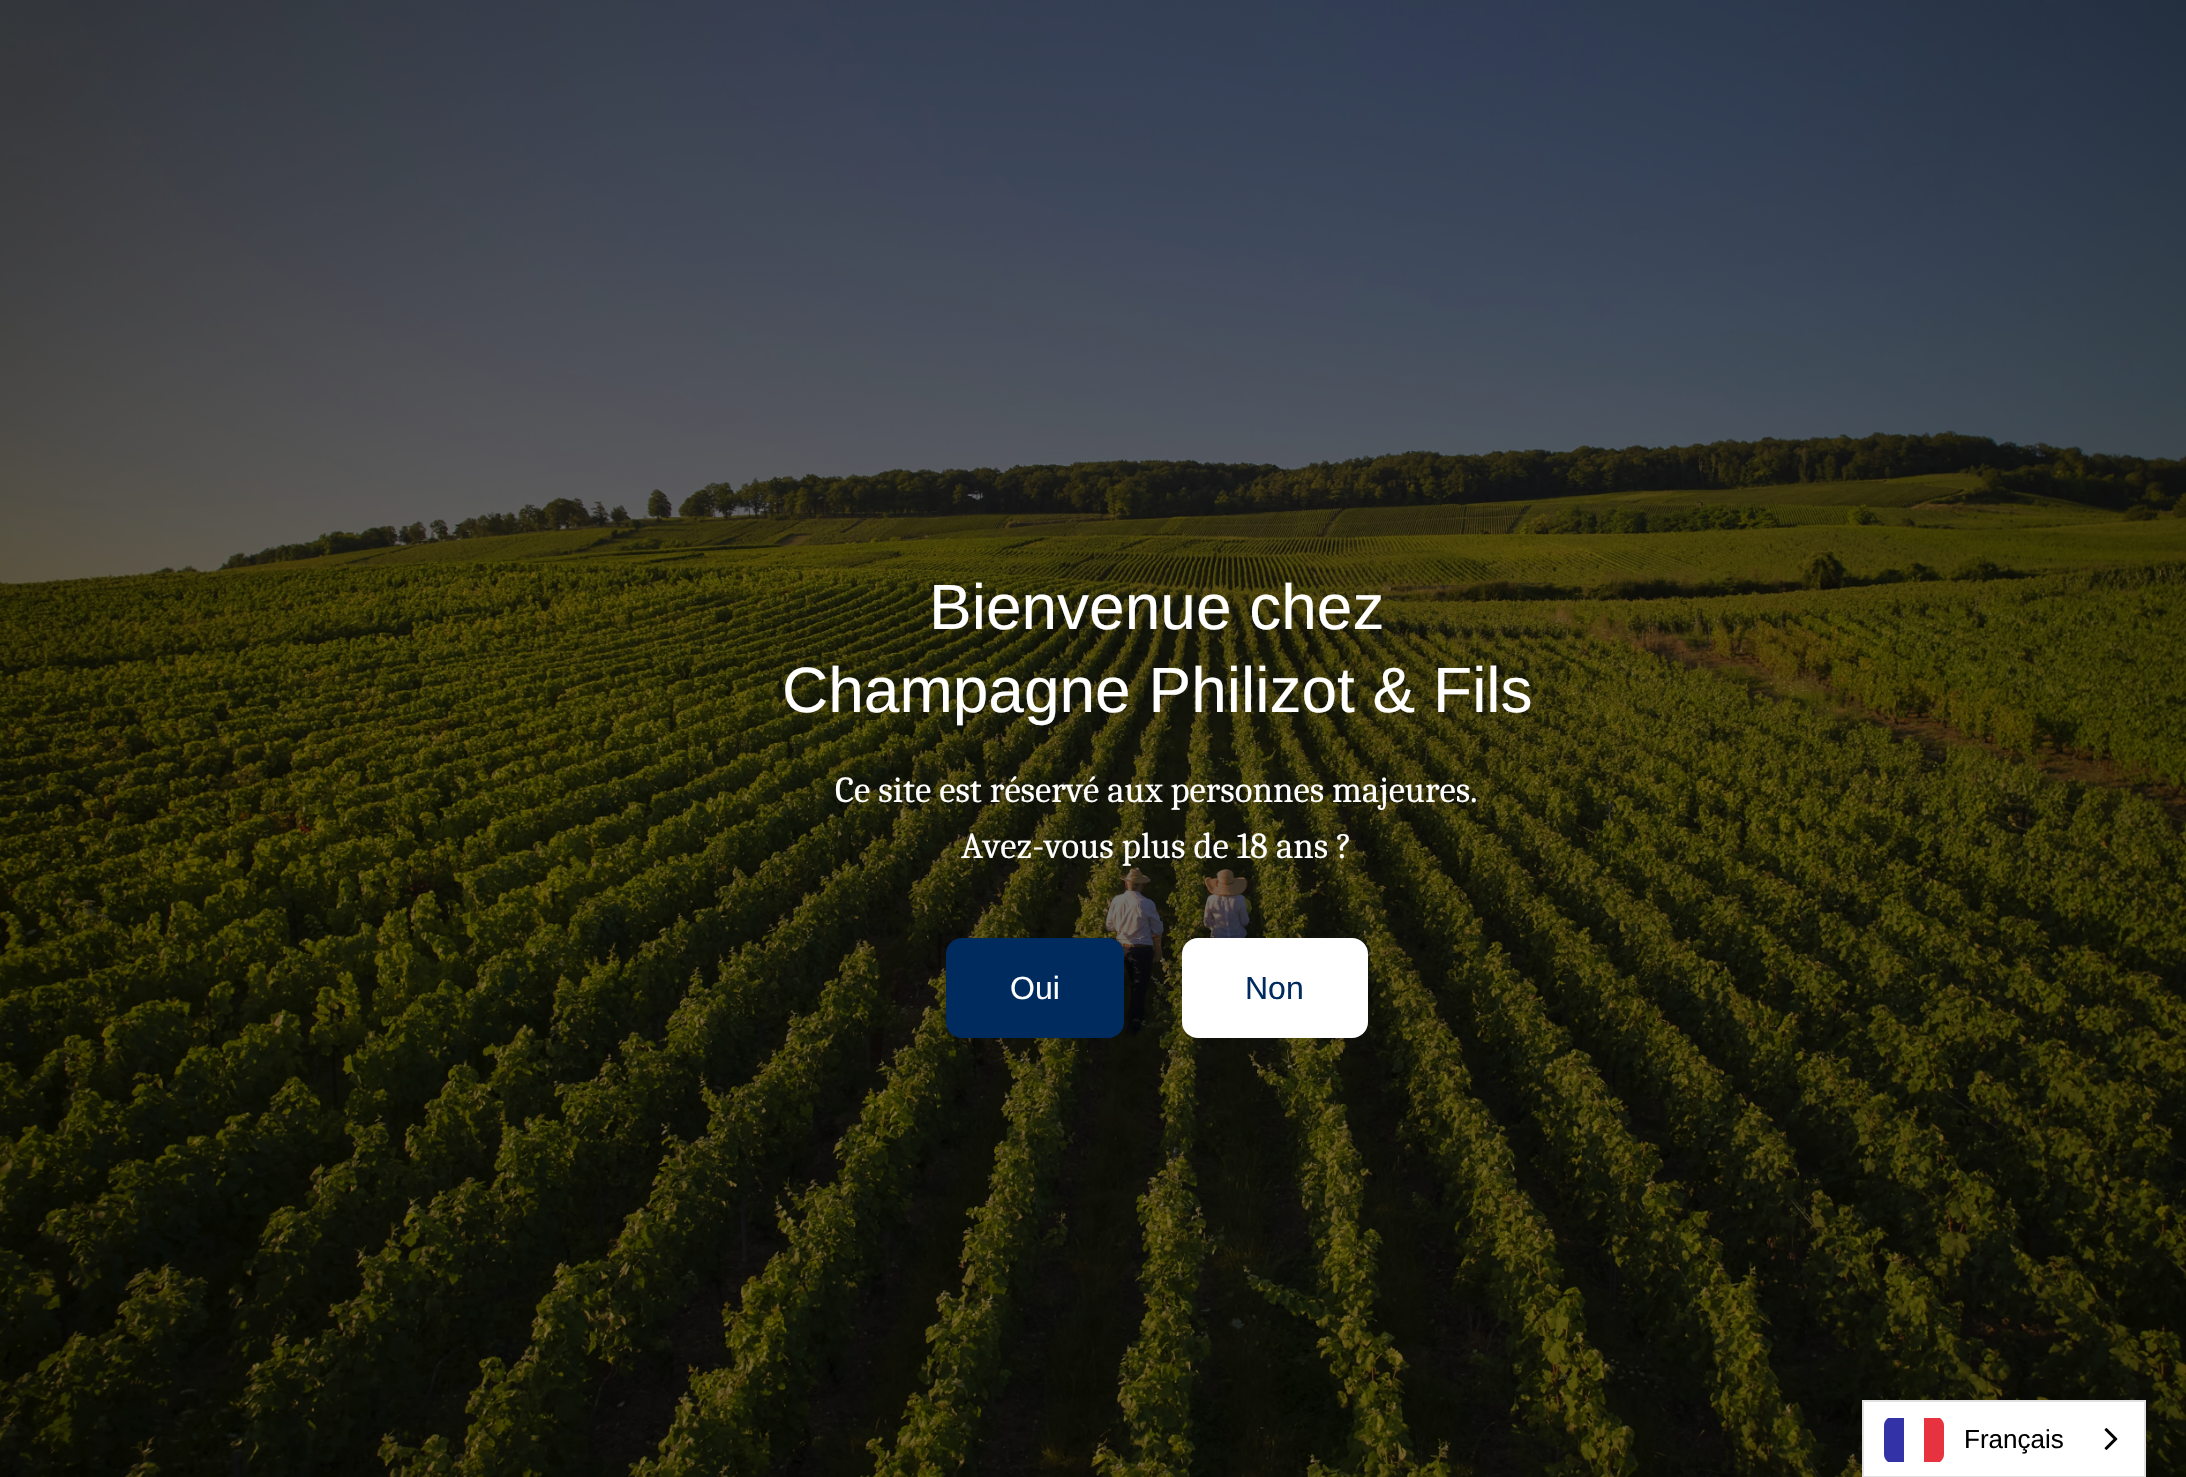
#include "include/core/SkBlurTypes.h"
#include "include/core/SkCanvas.h"
#include "include/core/SkData.h"
#include "include/core/SkFont.h"
#include "include/core/SkFontMgr.h"
#include "include/core/SkImage.h"
#include "include/core/SkMaskFilter.h"
#include "include/core/SkPaint.h"
#include "include/core/SkPathBuilder.h"
#include "include/core/SkTextBlob.h"
#include "include/effects/SkDashPathEffect.h"
#include "include/effects/SkGradientShader.h"
#include "include/utils/SkParsePath.h"

extern sk_sp<SkFontMgr> fontMgr;

static SkFont font(const char* family, int weight, float size, bool italic = false) {
    SkFontStyle style(weight, SkFontStyle::kNormal_Width,
        italic ? SkFontStyle::kItalic_Slant : SkFontStyle::kUpright_Slant);
    SkFont result(fontMgr->matchFamilyStyle(family, style), size);
    result.setSubpixel(true);
    return result;
}

static void drawLabel(SkCanvas* canvas, const char* s, float x, float y, const SkFont& font, SkColor color) {
    SkPaint ink(SkColor4f::FromColor(color));
    ink.setAntiAlias(true);
    canvas->drawString(s, x, y, font, ink);
}

static void fillRect(SkCanvas* canvas, float x, float y, float w, float h, SkColor color) {
    SkPaint ink(SkColor4f::FromColor(color));
    ink.setAntiAlias(true);
    canvas->drawRect(SkRect::MakeXYWH(x, y, w, h), ink);
}

static void fillRRect(SkCanvas* canvas, float x, float y, float w, float h, float radius, SkColor color) {
    SkPaint ink(SkColor4f::FromColor(color));
    ink.setAntiAlias(true);
    canvas->drawRoundRect(SkRect::MakeXYWH(x, y, w, h), radius, radius, ink);
}

static void drawPhoto(SkCanvas* canvas, const char* path, float x, float y, float w, float h) {
    auto image = SkImages::DeferredFromEncodedData(SkData::MakeFromFileName(path));
    canvas->drawImageRect(image, SkRect::MakeXYWH(x, y, w, h), SkSamplingOptions());
}

static SkPath parsePath(const char* data, bool evenOdd = false) {
    SkPath result = *SkParsePath::FromSVGString(data);
    if (evenOdd) result.setFillType(SkPathFillType::kEvenOdd);
    return result;
}

void draw(SkCanvas* canvas) {
    SkPaint paint;
    paint.setAntiAlias(true);
    canvas->clear(0xFFFFFFFF);
    drawPhoto(canvas, "assets/img1.png", 0, 0, 2186, 1477);
    SkFont font1 = font("Liberation Sans", 400, 64);
    drawLabel(canvas, "Bienvenue chez", 929, 629, font1, 0xFFFFFFFF);
    drawLabel(canvas, "Champagne Philizot & Fils", 782, 712, font1, 0xFFFFFFFF);
    SkFont font2 = font("Caladea", 400, 36.75f);
    drawLabel(canvas, "Ce site est réservé aux personnes majeures.", 835, 802, font2, 0xFFFFFFFF);
    drawLabel(canvas, "Avez-vous plus de 18 ans ?", 961, 858, font2, 0xFFFFFFFF);
    fillRRect(canvas, 946, 938, 178, 100, 16, 0xFF002B5F);
    SkFont font3 = font("Liberation Sans", 400, 32);
    drawLabel(canvas, "Oui", 1010, 999, font3, 0xFFFFFFFF);
    fillRRect(canvas, 1182, 938, 186, 100, 16, 0xFFFFFFFF);
    drawLabel(canvas, "Non", 1245, 999, font3, 0xFF002B5F);
    paint.setColor(0xFFFFFFFF);
    canvas->drawRect(SkRect::MakeXYWH(1863, 1401, 282, 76), paint);
    paint.setStroke(true);
    paint.setStrokeWidth(2);
    paint.setColor(0xFFE0E0E0);
    canvas->drawRect(SkRect::MakeXYWH(1863, 1401, 282, 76), paint);
    canvas->save();
    canvas->clipPath(parsePath("M1894 1416H1934C1939.5 1416 1944 1420.5 1944 1426V1454C1944 1459.5 1939.5 1464 1934 1464H1894C1888.5 1464 1884 1459.5 1884 1454V1426C1884 1420.5 1888.5 1416 1894 1416Z"), true);
    fillRect(canvas, 1884, 1418, 20, 44, 0xFF000091);
    fillRect(canvas, 1924, 1418, 20, 44, 0xFFE1000F);
    fillRect(canvas, 1884, 1418, 60, 45, 0x33FFFFFF);
    canvas->restore();
    SkFont font4 = font("Liberation Sans", 400, 26);
    drawLabel(canvas, "Français", 1964, 1448, font4, 0xFF000000);
    drawPhoto(canvas, "assets/img2.png", 2104, 1428, 14, 22);
}
